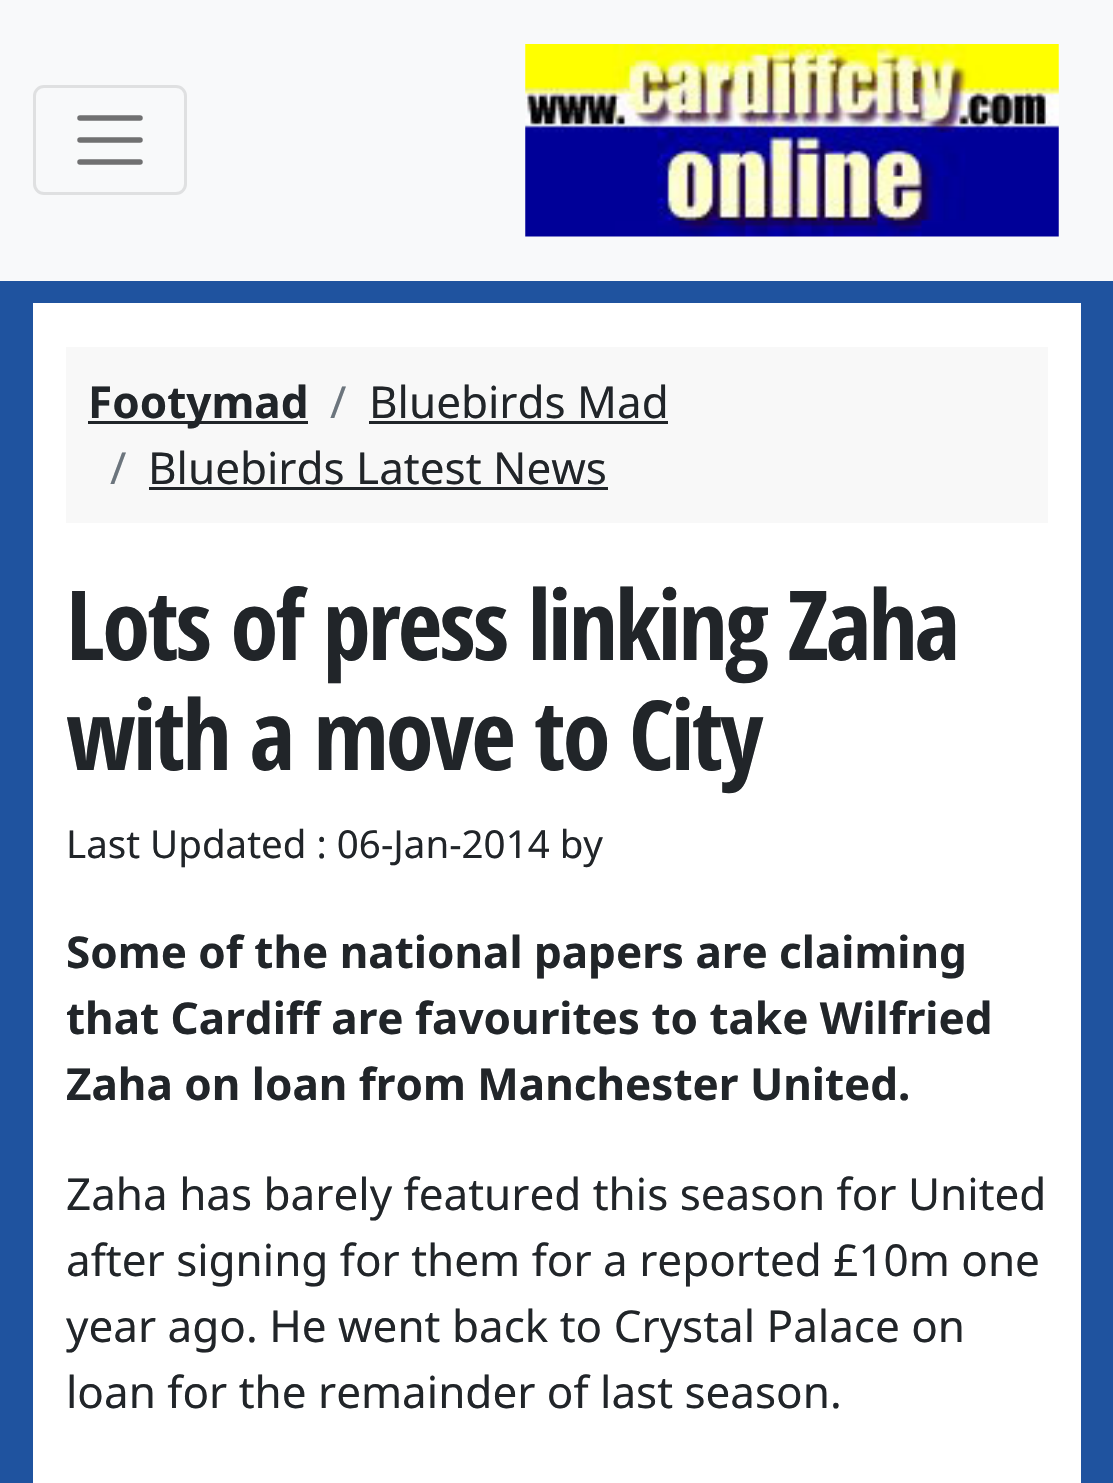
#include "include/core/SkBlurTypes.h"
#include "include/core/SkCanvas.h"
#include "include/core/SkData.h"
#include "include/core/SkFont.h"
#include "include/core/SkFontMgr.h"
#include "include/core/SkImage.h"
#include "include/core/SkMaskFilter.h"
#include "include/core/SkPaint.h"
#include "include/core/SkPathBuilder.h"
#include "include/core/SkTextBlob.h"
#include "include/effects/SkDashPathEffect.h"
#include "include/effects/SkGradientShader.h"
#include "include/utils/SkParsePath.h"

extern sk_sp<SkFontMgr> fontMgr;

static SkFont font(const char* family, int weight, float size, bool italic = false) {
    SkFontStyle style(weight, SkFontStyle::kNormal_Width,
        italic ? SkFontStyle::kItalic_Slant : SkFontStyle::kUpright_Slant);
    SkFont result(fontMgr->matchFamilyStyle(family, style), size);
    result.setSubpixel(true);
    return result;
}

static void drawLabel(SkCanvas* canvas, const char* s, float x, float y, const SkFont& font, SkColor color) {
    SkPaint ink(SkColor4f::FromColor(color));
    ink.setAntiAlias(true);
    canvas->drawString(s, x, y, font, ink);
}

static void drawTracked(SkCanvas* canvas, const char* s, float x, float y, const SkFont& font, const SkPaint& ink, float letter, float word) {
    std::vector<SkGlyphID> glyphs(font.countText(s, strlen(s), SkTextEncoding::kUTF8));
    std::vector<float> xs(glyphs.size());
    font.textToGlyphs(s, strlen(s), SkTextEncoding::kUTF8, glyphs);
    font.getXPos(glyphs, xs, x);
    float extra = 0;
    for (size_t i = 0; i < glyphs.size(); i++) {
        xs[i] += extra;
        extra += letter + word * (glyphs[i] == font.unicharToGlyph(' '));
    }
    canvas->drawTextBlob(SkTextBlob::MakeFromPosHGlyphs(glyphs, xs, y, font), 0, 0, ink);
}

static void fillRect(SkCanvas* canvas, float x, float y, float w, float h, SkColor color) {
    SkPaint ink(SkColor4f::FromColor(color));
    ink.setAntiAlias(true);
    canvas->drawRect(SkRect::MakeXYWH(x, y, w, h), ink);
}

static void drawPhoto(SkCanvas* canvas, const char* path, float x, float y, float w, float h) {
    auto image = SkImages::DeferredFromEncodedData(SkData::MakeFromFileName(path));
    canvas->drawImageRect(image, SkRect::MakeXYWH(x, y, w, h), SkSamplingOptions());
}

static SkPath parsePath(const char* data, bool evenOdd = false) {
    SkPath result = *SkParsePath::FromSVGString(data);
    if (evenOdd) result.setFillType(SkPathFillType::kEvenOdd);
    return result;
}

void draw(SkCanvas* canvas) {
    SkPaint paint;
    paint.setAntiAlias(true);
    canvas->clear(0xFF1F539F);
    fillRect(canvas, 0, 0, 1113, 281, 0xFFF8F9FA);
    paint.setStroke(true);
    paint.setStrokeWidth(3);
    paint.setColor(0xFFDFE0E1);
    canvas->drawRoundRect(SkRect::MakeXYWH(34.5f, 86.5f, 151, 107), 9.5f, 9.5f, paint);
    paint.setStrokeWidth(5.5f);
    paint.setStrokeCap(SkPaint::kRound_Cap);
    paint.setColor(0xFF707071);
    canvas->drawPath(parsePath("M80 118H140M80 140H140M80 162H140"), paint);
    drawPhoto(canvas, "assets/img1.png", 525, 44, 534, 193);
    fillRect(canvas, 33, 303, 1048, 1180, 0xFFFFFFFF);
    fillRect(canvas, 66, 347, 982, 176, 0xFFF8F8F8);
    fillRect(canvas, 88, 421, 220, 3, 0xFF212529);
    SkFont font1 = font("Noto Sans", 700, 44);
    drawLabel(canvas, "Footymad", 88, 418, font1, 0xFF212529);
    SkFont font2 = font("Noto Sans", 400, 44);
    drawLabel(canvas, "/", 330, 418, font2, 0xFF6C757D);
    drawLabel(canvas, "Bluebirds Mad", 369, 418, font2, 0xFF212529);
    fillRect(canvas, 369, 421, 299, 3, 0xFF212529);
    drawLabel(canvas, "/", 110, 484, font2, 0xFF6C757D);
    drawLabel(canvas, "Bluebirds Latest News", 148, 484, font2, 0xFF212529);
    fillRect(canvas, 149, 487, 459, 3, 0xFF212529);
    SkFont font3 = font("Open Sans Condensed", 700, 96.75f);
    paint.setStroke(false);
    paint.setColor(0xFF212529);
    drawTracked(canvas, "Lots of press linking Zaha", 66, 660, font3, paint, -2.75f, 0);
    drawTracked(canvas, "with a move to City", 66, 770, font3, paint, -2.75f, 0);
    SkFont font4 = font("Noto Sans", 400, 38.5f);
    drawLabel(canvas, "Last Updated : 06-Jan-2014 by", 66, 858, font4, 0xFF212529);
    drawLabel(canvas, "Some of the national papers are claiming", 66, 968, font1, 0xFF212529);
    drawLabel(canvas, "that Cardiff are favourites to take Wilfried", 66, 1034, font1, 0xFF212529);
    drawLabel(canvas, "Zaha on loan from Manchester United.", 66, 1100, font1, 0xFF212529);
    drawLabel(canvas, "Zaha has barely featured this season for United", 66, 1210, font2, 0xFF212529);
    drawLabel(canvas, "after signing for them for a reported £10m one", 66, 1276, font2, 0xFF212529);
    drawLabel(canvas, "year ago. He went back to Crystal Palace on", 66, 1342, font2, 0xFF212529);
    drawLabel(canvas, "loan for the remainder of last season.", 66, 1408, font2, 0xFF212529);
}
